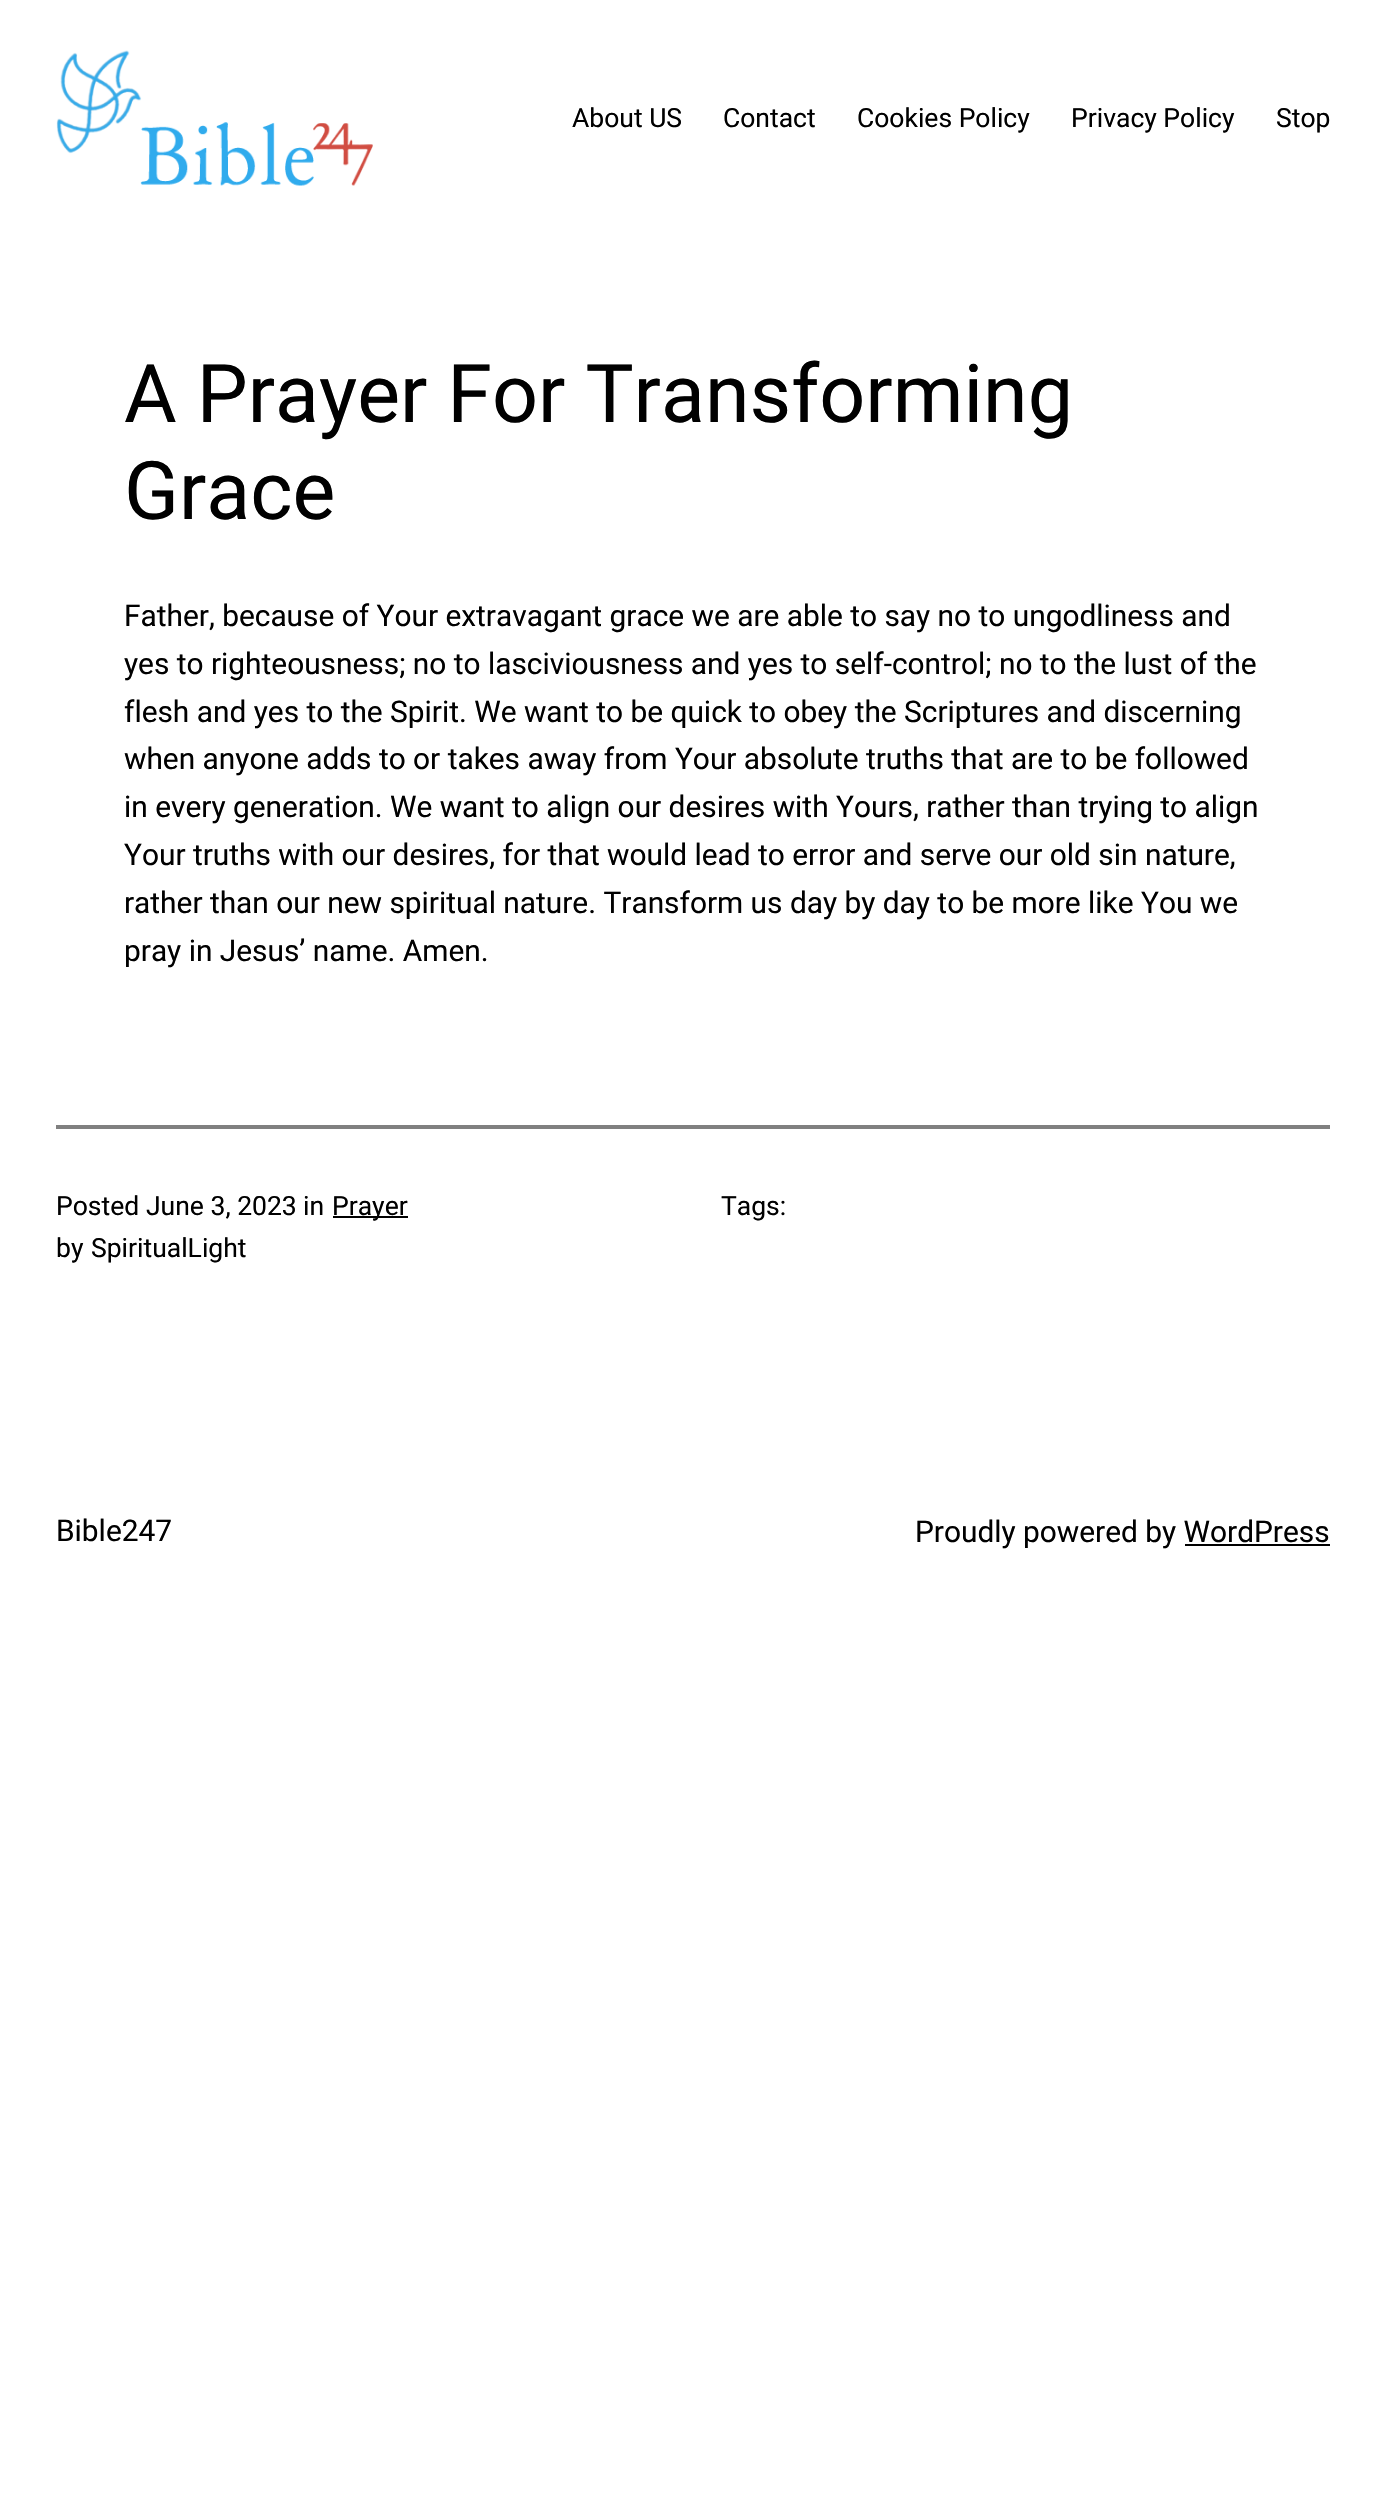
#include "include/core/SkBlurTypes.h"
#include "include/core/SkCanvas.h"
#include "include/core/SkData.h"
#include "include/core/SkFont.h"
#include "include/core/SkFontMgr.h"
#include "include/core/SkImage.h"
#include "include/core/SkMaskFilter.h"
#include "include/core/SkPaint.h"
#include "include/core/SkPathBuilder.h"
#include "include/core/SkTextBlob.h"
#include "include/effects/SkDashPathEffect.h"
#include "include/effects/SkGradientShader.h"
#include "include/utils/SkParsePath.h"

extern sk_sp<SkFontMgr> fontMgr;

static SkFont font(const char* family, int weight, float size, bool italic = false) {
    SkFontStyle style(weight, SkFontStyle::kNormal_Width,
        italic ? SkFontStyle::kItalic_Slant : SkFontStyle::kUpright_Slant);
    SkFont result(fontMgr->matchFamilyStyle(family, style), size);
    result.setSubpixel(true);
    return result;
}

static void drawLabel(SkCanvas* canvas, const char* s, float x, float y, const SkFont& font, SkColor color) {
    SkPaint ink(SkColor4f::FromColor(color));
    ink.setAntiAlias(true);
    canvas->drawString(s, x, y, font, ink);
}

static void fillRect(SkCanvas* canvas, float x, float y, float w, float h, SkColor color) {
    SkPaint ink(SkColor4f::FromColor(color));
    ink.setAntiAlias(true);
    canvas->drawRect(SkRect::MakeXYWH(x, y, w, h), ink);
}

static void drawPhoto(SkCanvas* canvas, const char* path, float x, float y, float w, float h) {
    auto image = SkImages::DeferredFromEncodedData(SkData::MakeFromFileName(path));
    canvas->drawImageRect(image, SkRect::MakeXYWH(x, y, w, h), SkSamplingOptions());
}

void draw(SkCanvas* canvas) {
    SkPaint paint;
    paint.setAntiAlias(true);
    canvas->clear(0xFFFFFFFF);
    drawPhoto(canvas, "assets/img1.png", 56, 50, 317, 136);
    SkFont font1 = font("Roboto", 400, 26.5f);
    drawLabel(canvas, "About US", 572, 127, font1, 0xFF000000);
    drawLabel(canvas, "Contact", 723, 127, font1, 0xFF000000);
    drawLabel(canvas, "Cookies Policy", 857, 127, font1, 0xFF000000);
    drawLabel(canvas, "Privacy Policy", 1071, 127, font1, 0xFF000000);
    drawLabel(canvas, "Stop", 1276, 127, font1, 0xFF000000);
    SkFont font2 = font("Roboto", 400, 80.75f);
    drawLabel(canvas, "A Prayer For Transforming", 124, 422, font2, 0xFF000000);
    drawLabel(canvas, "Grace", 124, 519, font2, 0xFF000000);
    SkFont font3 = font("Roboto", 400, 29.85f);
    drawLabel(canvas, "Father, because of Your extravagant grace we are able to say no to ungodliness and", 124, 626, font3, 0xFF000000);
    drawLabel(canvas, "yes to righteousness; no to lasciviousness and yes to self-control; no to the lust of the", 124, 674, font3, 0xFF000000);
    drawLabel(canvas, "flesh and yes to the Spirit. We want to be quick to obey the Scriptures and discerning", 124, 722, font3, 0xFF000000);
    drawLabel(canvas, "when anyone adds to or takes away from Your absolute truths that are to be followed", 124, 769, font3, 0xFF000000);
    drawLabel(canvas, "in every generation. We want to align our desires with Yours, rather than trying to align", 124, 817, font3, 0xFF000000);
    drawLabel(canvas, "Your truths with our desires, for that would lead to error and serve our old sin nature,", 124, 865, font3, 0xFF000000);
    drawLabel(canvas, "rather than our new spiritual nature. Transform us day by day to be more like You we", 124, 913, font3, 0xFF000000);
    drawLabel(canvas, "pray in Jesus’ name. Amen.", 124, 961, font3, 0xFF000000);
    fillRect(canvas, 56, 1125, 1274, 4, 0xFF808080);
    drawLabel(canvas, "Posted", 56, 1215, font1, 0xFF000000);
    drawLabel(canvas, "June 3, 2023", 146, 1215, font1, 0xFF000000);
    drawLabel(canvas, "in", 303, 1215, font1, 0xFF000000);
    fillRect(canvas, 333, 1216, 75, 2, 0xFF000000);
    drawLabel(canvas, "Prayer", 332, 1215, font1, 0xFF000000);
    drawLabel(canvas, "by", 56, 1257, font1, 0xFF000000);
    drawLabel(canvas, "SpiritualLight", 91, 1257, font1, 0xFF000000);
    drawLabel(canvas, "Tags:", 721, 1215, font1, 0xFF000000);
    drawLabel(canvas, "Bible247", 56, 1541, font3, 0xFF000000);
    drawLabel(canvas, "Proudly powered by WordPress", 915, 1542, font3, 0xFF000000);
    fillRect(canvas, 1185, 1544, 145, 2, 0xFF000000);
}
